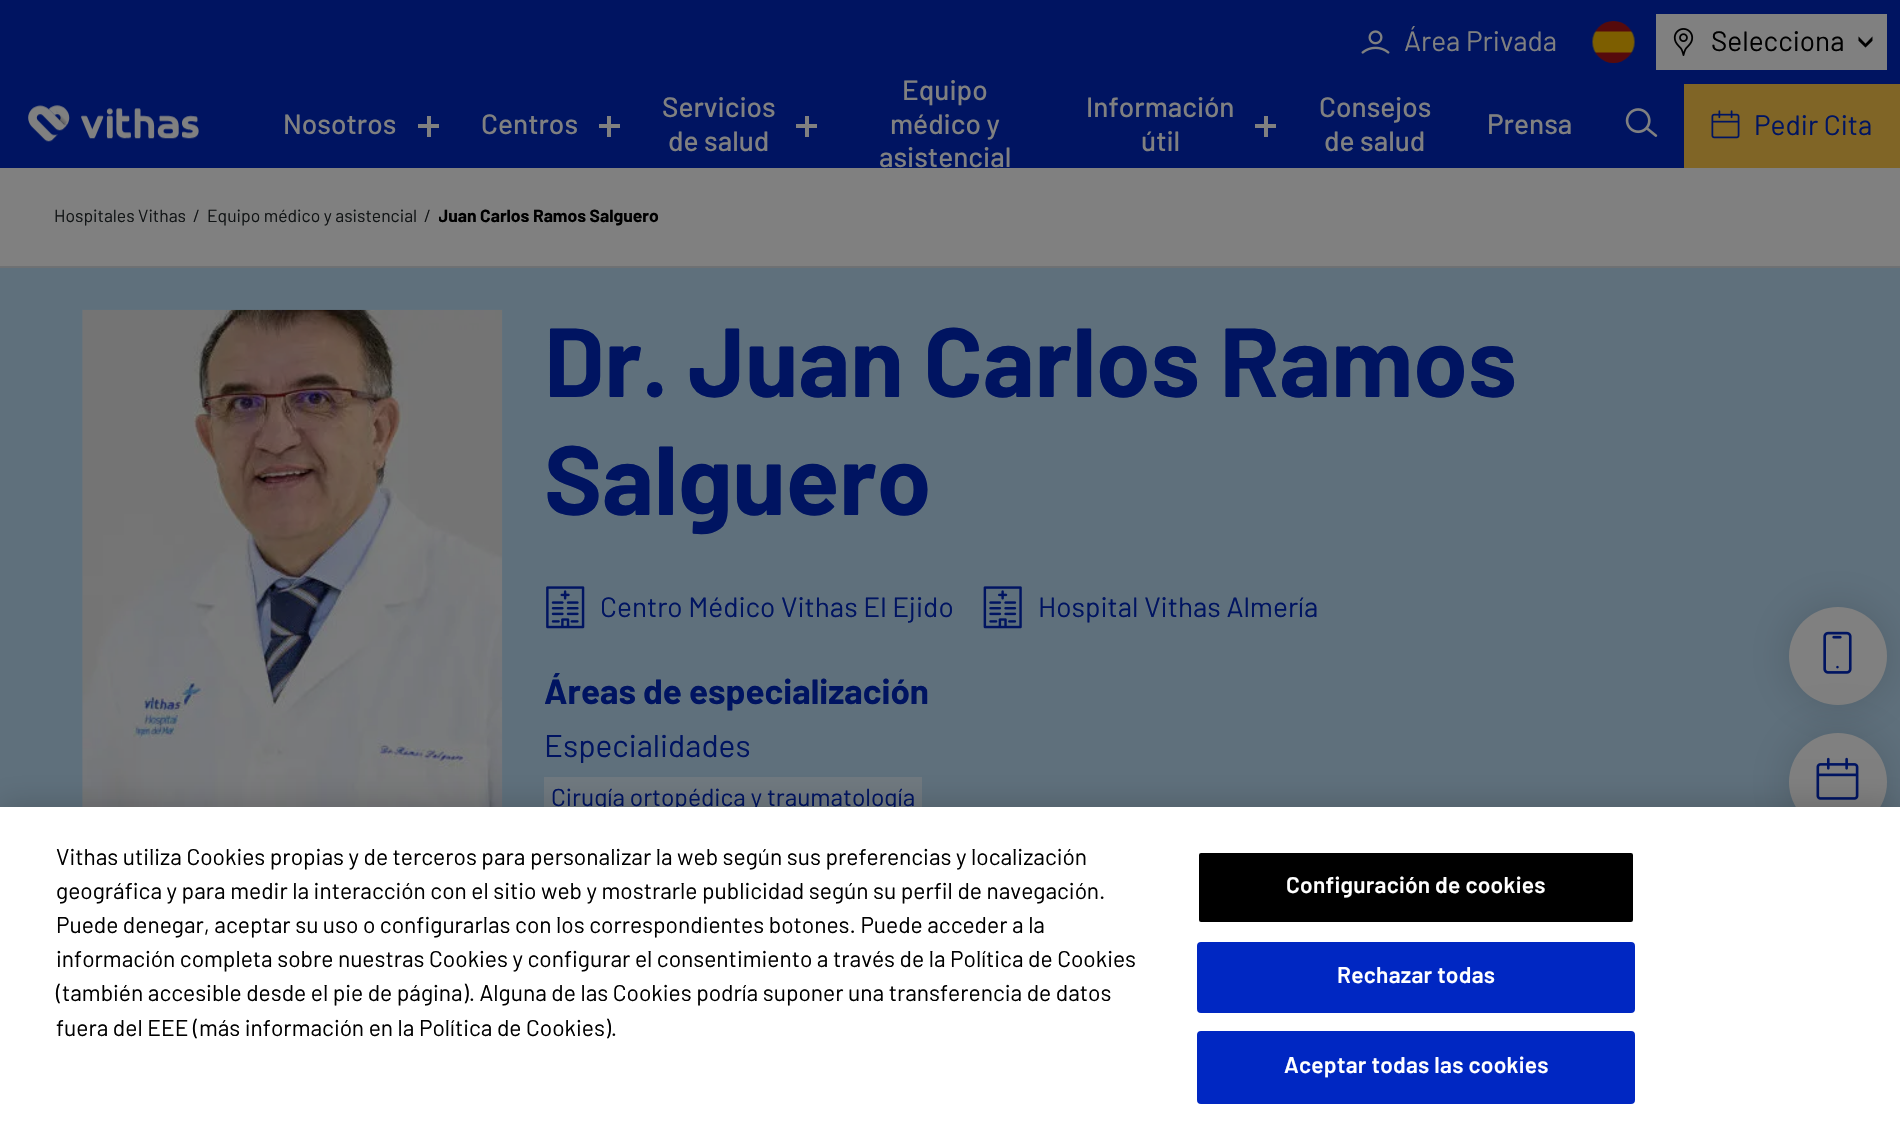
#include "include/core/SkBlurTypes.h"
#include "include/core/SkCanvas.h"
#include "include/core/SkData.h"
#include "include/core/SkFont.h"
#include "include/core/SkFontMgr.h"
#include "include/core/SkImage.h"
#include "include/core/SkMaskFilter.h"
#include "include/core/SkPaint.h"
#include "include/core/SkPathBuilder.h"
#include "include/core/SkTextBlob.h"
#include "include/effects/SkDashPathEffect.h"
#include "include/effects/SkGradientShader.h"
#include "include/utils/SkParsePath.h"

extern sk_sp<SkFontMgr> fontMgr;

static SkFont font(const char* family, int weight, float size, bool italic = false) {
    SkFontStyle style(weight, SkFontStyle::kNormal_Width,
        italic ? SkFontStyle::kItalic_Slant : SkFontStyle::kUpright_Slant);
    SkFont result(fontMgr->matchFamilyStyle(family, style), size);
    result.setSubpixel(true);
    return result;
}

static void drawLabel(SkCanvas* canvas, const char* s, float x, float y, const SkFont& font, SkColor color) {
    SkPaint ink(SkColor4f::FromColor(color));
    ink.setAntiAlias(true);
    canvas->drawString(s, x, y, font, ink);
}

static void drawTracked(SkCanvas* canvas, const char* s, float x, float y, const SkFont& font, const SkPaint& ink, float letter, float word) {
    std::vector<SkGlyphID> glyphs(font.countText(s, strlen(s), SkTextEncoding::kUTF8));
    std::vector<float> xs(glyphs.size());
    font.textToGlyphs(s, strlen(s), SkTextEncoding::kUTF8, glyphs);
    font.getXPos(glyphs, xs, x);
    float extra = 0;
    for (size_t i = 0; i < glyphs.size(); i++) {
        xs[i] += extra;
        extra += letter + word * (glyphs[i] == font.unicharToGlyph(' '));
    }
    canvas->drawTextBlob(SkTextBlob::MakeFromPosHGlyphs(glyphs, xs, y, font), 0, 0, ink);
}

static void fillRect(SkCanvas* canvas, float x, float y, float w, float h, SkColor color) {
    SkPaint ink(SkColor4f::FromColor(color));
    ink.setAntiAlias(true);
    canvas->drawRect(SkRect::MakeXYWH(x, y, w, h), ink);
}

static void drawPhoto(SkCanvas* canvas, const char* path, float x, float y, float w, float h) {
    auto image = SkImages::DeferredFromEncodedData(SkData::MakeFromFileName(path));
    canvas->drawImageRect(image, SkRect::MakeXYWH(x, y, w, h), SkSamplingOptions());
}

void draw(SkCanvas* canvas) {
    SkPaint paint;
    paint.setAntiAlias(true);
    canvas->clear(0xFF808080);
    fillRect(canvas, 0, 0, 1900, 168, 0xFF001461);
    drawPhoto(canvas, "assets/img1.png", 1361, 30, 29, 24);
    SkFont font1 = font("Barlow", 400, 28);
    drawLabel(canvas, "Área Privada", 1404, 51, font1, 0xFF808080);
    drawPhoto(canvas, "assets/img2.png", 1592, 21, 43, 42);
    fillRect(canvas, 1656, 14, 231, 56, 0xFF808080);
    drawPhoto(canvas, "assets/img3.png", 1673, 28, 21, 28);
    drawLabel(canvas, "Selecciona", 1711, 51, font1, 0xFF000000);
    drawPhoto(canvas, "assets/img4.png", 1858, 36, 15, 12);
    drawPhoto(canvas, "assets/img5.png", 28, 105, 171, 37);
    SkFont font2 = font("Barlow", 500, 28);
    drawLabel(canvas, "Nosotros", 283, 134, font2, 0xFF808080);
    fillRect(canvas, 418, 124, 21, 4, 0xFF808080);
    fillRect(canvas, 427, 116, 4, 21, 0xFF808080);
    drawLabel(canvas, "Centros", 481, 134, font2, 0xFF808080);
    fillRect(canvas, 599, 124, 21, 4, 0xFF808080);
    fillRect(canvas, 607, 116, 4, 21, 0xFF808080);
    drawLabel(canvas, "Servicios", 662, 117, font2, 0xFF808080);
    fillRect(canvas, 796, 124, 21, 4, 0xFF808080);
    fillRect(canvas, 805, 116, 4, 21, 0xFF808080);
    drawLabel(canvas, "de salud", 668, 151, font2, 0xFF808080);
    drawLabel(canvas, "Equipo", 902, 100, font2, 0xFF808080);
    drawLabel(canvas, "médico y", 890, 134, font2, 0xFF808080);
    drawLabel(canvas, "asistencial", 879, 167, font2, 0xFF808080);
    drawLabel(canvas, "Información", 1086, 117, font2, 0xFF808080);
    fillRect(canvas, 1255, 124, 21, 4, 0xFF808080);
    fillRect(canvas, 1264, 116, 4, 21, 0xFF808080);
    drawLabel(canvas, "útil", 1141, 151, font2, 0xFF808080);
    drawLabel(canvas, "Consejos", 1319, 117, font2, 0xFF808080);
    drawLabel(canvas, "de salud", 1324, 151, font2, 0xFF808080);
    drawLabel(canvas, "Prensa", 1487, 134, font2, 0xFF808080);
    drawPhoto(canvas, "assets/img6.png", 1625, 108, 33, 29);
    fillRect(canvas, 1684, 84, 216, 84, 0xFF806526);
    drawPhoto(canvas, "assets/img7.png", 1711, 110, 29, 29);
    drawLabel(canvas, "Pedir Cita", 1754, 135, font1, 0xFF001461);
    fillRect(canvas, 0, 266, 1900, 2, 0xFF6F7173);
    SkFont font3 = font("Barlow", 400, 17.5f);
    drawLabel(canvas, "Hospitales Vithas", 54, 222, font3, 0xFF111415);
    drawLabel(canvas, "/", 193, 222, font3, 0xFF111415);
    drawLabel(canvas, "Equipo médico y asistencial", 207, 222, font3, 0xFF111415);
    drawLabel(canvas, "/", 424, 222, font3, 0xFF111415);
    canvas->save();
    canvas->clipRect(SkRect::MakeXYWH(439, 208, 1407, 18));
    SkFont font4 = font("Barlow", 700, 17.5f);
    drawLabel(canvas, "Juan Carlos Ramos Salguero", 438, 222, font4, 0xFF000000);
    canvas->restore();
    fillRect(canvas, 0, 268, 1900, 539, 0xFF5F707C);
    drawPhoto(canvas, "assets/img8.png", 82, 309, 421, 498);
    SkFont font5 = font("Barlow", 700, 98);
    drawLabel(canvas, "Dr. Juan Carlos Ramos", 544, 397, font5, 0xFF001461);
    drawLabel(canvas, "Salguero", 544, 515, font5, 0xFF001461);
    drawPhoto(canvas, "assets/img9.png", 546, 586, 39, 43);
    drawLabel(canvas, "Centro Médico Vithas El Ejido", 600, 617, font1, 0xFF001461);
    drawPhoto(canvas, "assets/img10.png", 983, 586, 39, 43);
    drawLabel(canvas, "Hospital Vithas Almería", 1038, 617, font1, 0xFF001461);
    SkFont font6 = font("Barlow", 700, 35);
    drawLabel(canvas, "Áreas de especialización", 544, 704, font6, 0xFF001461);
    SkFont font7 = font("Barlow", 400, 31.5f);
    drawLabel(canvas, "Especialidades", 544, 757, font7, 0xFF001461);
    fillRect(canvas, 544, 777, 378, 30, 0xFF707980);
    SkFont font8 = font("Barlow", 400, 24.5f);
    drawLabel(canvas, "Cirugía ortopédica y traumatología", 551, 806, font8, 0xFF001461);
    paint.setColor(0x26000000);
    paint.setMaskFilter(SkMaskFilter::MakeBlur(kNormal_SkBlurStyle, 22));
    canvas->drawRoundRect(SkRect::MakeXYWH(1789, 607, 98, 98), 49, 49, paint);
    paint.setMaskFilter(nullptr);
    paint.setColor(0xFF808080);
    canvas->drawCircle(1838, 656, 49, paint);
    drawPhoto(canvas, "assets/img11.png", 1823, 631, 29, 43);
    paint.setColor(0x26000000);
    paint.setMaskFilter(SkMaskFilter::MakeBlur(kNormal_SkBlurStyle, 22));
    canvas->drawRoundRect(SkRect::MakeXYWH(1789, 733, 98, 98), 49, 49, paint);
    paint.setMaskFilter(nullptr);
    paint.setColor(0xFF808080);
    canvas->drawCircle(1838, 782, 49, paint);
    drawPhoto(canvas, "assets/img12.png", 1816, 757, 43, 43);
    paint.setColor(0x33000000);
    paint.setMaskFilter(SkMaskFilter::MakeBlur(kNormal_SkBlurStyle, 16));
    canvas->drawRect(SkRect::MakeXYWH(0, 807, 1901, 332), paint);
    paint.setMaskFilter(nullptr);
    fillRect(canvas, 0, 807, 1900, 331, 0xFFFFFFFF);
    SkFont font9 = font("Barlow", 400, 22.75f);
    drawLabel(canvas, "Vithas utiliza Cookies propias y de terceros para personalizar la web según sus preferencias y localización", 56, 865, font9, 0xFF000000);
    drawLabel(canvas, "geográfica y para medir la interacción con el sitio web y mostrarle publicidad según su perfil de navegación.", 56, 899, font9, 0xFF000000);
    drawLabel(canvas, "Puede denegar, aceptar su uso o configurarlas con los correspondientes botones. Puede acceder a la", 56, 933, font9, 0xFF000000);
    drawLabel(canvas, "información completa sobre nuestras Cookies y configurar el consentimiento a través de la Política de Cookies", 56, 967, font9, 0xFF000000);
    drawLabel(canvas, "(también accesible desde el pie de página). Alguna de las Cookies podría suponer una transferencia de datos", 56, 1001, font9, 0xFF000000);
    drawLabel(canvas, "fuera del EEE (más información en la Política de Cookies).", 56, 1036, font9, 0xFF000000);
    paint.setColor(0xFF000000);
    canvas->drawRoundRect(SkRect::MakeXYWH(1198, 852, 436, 71), 3, 3, paint);
    paint.setStroke(true);
    paint.setStrokeWidth(2);
    paint.setColor(0xFFFFFFFF);
    canvas->drawRoundRect(SkRect::MakeXYWH(1198, 852, 436, 71), 3, 3, paint);
    SkFont font10 = font("Barlow", 600, 22.75f);
    paint.setStroke(false);
    drawTracked(canvas, "Configuración de cookies", 1286, 893, font10, paint, 0.25f, 0);
    paint.setColor(0xFF0027C2);
    canvas->drawRoundRect(SkRect::MakeXYWH(1198, 943, 436, 69), 3, 3, paint);
    paint.setStroke(true);
    canvas->drawRoundRect(SkRect::MakeXYWH(1198, 943, 436, 69), 3, 3, paint);
    paint.setStroke(false);
    paint.setColor(0xFFFFFFFF);
    drawTracked(canvas, "Rechazar todas", 1337, 983, font10, paint, 0.25f, 0);
    paint.setColor(0xFF0027C2);
    canvas->drawRoundRect(SkRect::MakeXYWH(1198, 1032, 436, 71), 3, 3, paint);
    paint.setStroke(true);
    canvas->drawRoundRect(SkRect::MakeXYWH(1198, 1032, 436, 71), 3, 3, paint);
    paint.setStroke(false);
    paint.setColor(0xFFFFFFFF);
    drawTracked(canvas, "Aceptar todas las cookies", 1284, 1073, font10, paint, 0.25f, 0);
}
